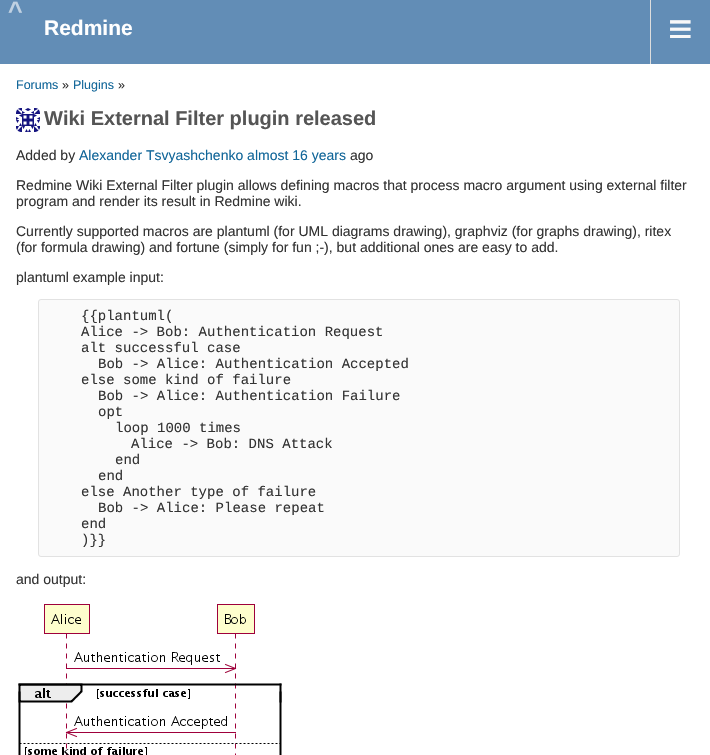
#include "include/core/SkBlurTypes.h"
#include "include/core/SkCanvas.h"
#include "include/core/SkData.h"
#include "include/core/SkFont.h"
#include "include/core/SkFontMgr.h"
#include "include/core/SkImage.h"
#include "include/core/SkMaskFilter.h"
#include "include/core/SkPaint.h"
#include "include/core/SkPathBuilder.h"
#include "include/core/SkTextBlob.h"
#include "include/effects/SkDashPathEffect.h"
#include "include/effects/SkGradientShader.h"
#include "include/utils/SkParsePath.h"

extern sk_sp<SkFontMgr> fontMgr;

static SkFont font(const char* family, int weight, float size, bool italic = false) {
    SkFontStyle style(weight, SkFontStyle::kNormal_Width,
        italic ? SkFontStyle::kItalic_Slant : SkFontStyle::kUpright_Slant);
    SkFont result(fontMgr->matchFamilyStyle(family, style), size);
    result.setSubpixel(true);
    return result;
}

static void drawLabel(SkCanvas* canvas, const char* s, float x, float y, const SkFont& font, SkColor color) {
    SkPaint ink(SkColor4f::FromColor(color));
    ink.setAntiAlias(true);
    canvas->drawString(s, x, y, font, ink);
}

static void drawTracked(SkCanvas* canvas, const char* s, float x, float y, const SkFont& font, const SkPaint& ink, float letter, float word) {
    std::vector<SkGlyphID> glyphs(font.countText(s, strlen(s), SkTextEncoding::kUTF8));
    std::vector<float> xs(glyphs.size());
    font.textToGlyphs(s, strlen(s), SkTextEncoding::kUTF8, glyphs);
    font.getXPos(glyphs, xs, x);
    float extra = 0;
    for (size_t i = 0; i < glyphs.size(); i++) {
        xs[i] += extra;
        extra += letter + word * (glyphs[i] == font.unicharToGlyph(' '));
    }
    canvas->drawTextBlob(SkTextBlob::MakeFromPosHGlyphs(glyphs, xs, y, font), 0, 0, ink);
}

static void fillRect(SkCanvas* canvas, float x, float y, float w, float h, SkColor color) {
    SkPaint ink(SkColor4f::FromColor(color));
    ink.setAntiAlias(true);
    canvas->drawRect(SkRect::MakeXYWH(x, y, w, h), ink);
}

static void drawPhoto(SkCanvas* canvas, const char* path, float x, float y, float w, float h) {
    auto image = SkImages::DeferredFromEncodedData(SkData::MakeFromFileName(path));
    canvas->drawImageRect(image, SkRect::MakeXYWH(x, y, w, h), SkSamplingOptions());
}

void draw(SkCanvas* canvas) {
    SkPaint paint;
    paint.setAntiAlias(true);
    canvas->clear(0xFFFFFFFF);
    fillRect(canvas, 0, 0, 710, 64, 0xFF628DB6);
    SkFont font1 = font("Liberation Sans", 700, 25);
    paint.setColor(0xFFC0D1E2);
    drawTracked(canvas, "^", 8, 19, font1, paint, 4, 0);
    SkFont font2 = font("Liberation Sans", 700, 21);
    drawLabel(canvas, "Redmine", 44, 35, font2, 0xFFFFFFFF);
    fillRect(canvas, 650, 0, 1, 64, 0xFFDDDDDD);
    SkFont font3 = font("Liberation Sans", 400, 42);
    drawLabel(canvas, "≡", 668, 43, font3, 0xFFF8F8F8);
    SkFont font4 = font("Liberation Sans", 400, 12.5f);
    drawLabel(canvas, "Forums", 16, 89, font4, 0xFF116699);
    drawLabel(canvas, "»", 62, 89, font4, 0xFF333333);
    drawLabel(canvas, "Plugins", 73, 89, font4, 0xFF116699);
    drawLabel(canvas, "»", 118, 89, font4, 0xFF333333);
    drawPhoto(canvas, "assets/img1.png", 16, 108, 24, 24);
    SkFont font5 = font("Liberation Sans", 700, 20);
    drawLabel(canvas, "Wiki External Filter plugin released", 44, 125, font5, 0xFF555555);
    SkFont font6 = font("Liberation Sans", 400, 14);
    drawLabel(canvas, "Added by", 16, 160, font6, 0xFF333333);
    drawLabel(canvas, "Alexander Tsvyashchenko almost 16 years", 79, 160, font6, 0xFF116699);
    drawLabel(canvas, "ago", 350, 160, font6, 0xFF333333);
    drawLabel(canvas, "Redmine Wiki External Filter plugin allows defining macros that process macro argument using external filter", 16, 190, font6, 0xFF333333);
    drawLabel(canvas, "program and render its result in Redmine wiki.", 16, 206, font6, 0xFF333333);
    drawLabel(canvas, "Currently supported macros are plantuml (for UML diagrams drawing), graphviz (for graphs drawing), ritex", 16, 236, font6, 0xFF333333);
    drawLabel(canvas, "(for formula drawing) and fortune (simply for fun ;-), but additional ones are easy to add.", 16, 252, font6, 0xFF333333);
    drawLabel(canvas, "plantuml example input:", 16, 282, font6, 0xFF333333);
    paint.setColor(0xFFFAFAFA);
    canvas->drawRoundRect(SkRect::MakeXYWH(38.5f, 299.5f, 641, 257), 2.5f, 2.5f, paint);
    paint.setStroke(true);
    paint.setStrokeWidth(1);
    paint.setColor(0xFFE2E2E2);
    canvas->drawRoundRect(SkRect::MakeXYWH(38.5f, 299.5f, 641, 257), 2.5f, 2.5f, paint);
    SkFont font7 = font("Liberation Mono", 400, 14);
    drawLabel(canvas, "{{plantuml(", 81, 320, font7, 0xFF333333);
    drawLabel(canvas, "Alice -> Bob: Authentication Request", 81, 336, font7, 0xFF333333);
    drawLabel(canvas, "alt successful case", 81, 352, font7, 0xFF333333);
    drawLabel(canvas, "Bob -> Alice: Authentication Accepted", 98, 368, font7, 0xFF333333);
    drawLabel(canvas, "else some kind of failure", 81, 384, font7, 0xFF333333);
    drawLabel(canvas, "Bob -> Alice: Authentication Failure", 98, 400, font7, 0xFF333333);
    drawLabel(canvas, "opt", 98, 416, font7, 0xFF333333);
    drawLabel(canvas, "loop 1000 times", 115, 432, font7, 0xFF333333);
    drawLabel(canvas, "Alice -> Bob: DNS Attack", 131, 448, font7, 0xFF333333);
    drawLabel(canvas, "end", 115, 464, font7, 0xFF333333);
    drawLabel(canvas, "end", 98, 480, font7, 0xFF333333);
    drawLabel(canvas, "else Another type of failure", 81, 496, font7, 0xFF333333);
    drawLabel(canvas, "Bob -> Alice: Please repeat", 98, 512, font7, 0xFF333333);
    drawLabel(canvas, "end", 81, 528, font7, 0xFF333333);
    drawLabel(canvas, ")}}", 81, 544, font7, 0xFF333333);
    drawLabel(canvas, "and output:", 16, 584, font6, 0xFF333333);
    drawPhoto(canvas, "assets/img2.png", 18, 604, 264, 151);
}
